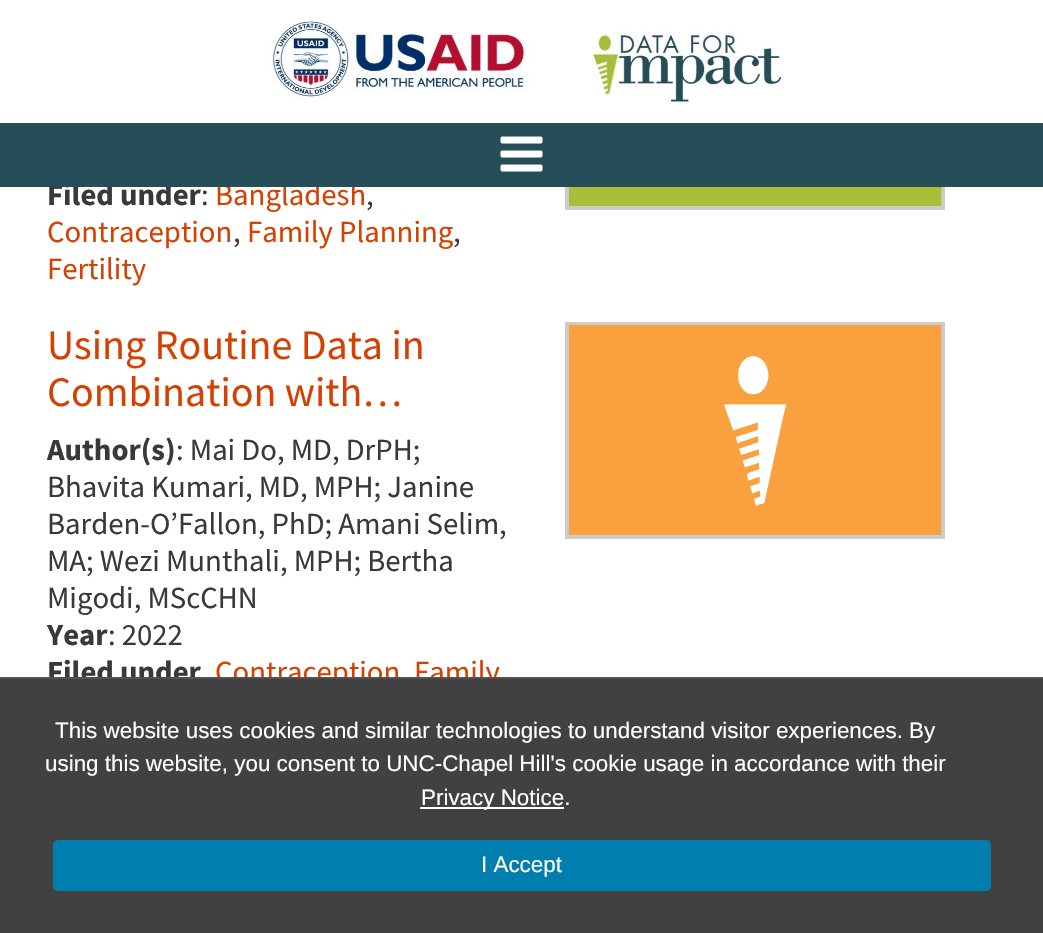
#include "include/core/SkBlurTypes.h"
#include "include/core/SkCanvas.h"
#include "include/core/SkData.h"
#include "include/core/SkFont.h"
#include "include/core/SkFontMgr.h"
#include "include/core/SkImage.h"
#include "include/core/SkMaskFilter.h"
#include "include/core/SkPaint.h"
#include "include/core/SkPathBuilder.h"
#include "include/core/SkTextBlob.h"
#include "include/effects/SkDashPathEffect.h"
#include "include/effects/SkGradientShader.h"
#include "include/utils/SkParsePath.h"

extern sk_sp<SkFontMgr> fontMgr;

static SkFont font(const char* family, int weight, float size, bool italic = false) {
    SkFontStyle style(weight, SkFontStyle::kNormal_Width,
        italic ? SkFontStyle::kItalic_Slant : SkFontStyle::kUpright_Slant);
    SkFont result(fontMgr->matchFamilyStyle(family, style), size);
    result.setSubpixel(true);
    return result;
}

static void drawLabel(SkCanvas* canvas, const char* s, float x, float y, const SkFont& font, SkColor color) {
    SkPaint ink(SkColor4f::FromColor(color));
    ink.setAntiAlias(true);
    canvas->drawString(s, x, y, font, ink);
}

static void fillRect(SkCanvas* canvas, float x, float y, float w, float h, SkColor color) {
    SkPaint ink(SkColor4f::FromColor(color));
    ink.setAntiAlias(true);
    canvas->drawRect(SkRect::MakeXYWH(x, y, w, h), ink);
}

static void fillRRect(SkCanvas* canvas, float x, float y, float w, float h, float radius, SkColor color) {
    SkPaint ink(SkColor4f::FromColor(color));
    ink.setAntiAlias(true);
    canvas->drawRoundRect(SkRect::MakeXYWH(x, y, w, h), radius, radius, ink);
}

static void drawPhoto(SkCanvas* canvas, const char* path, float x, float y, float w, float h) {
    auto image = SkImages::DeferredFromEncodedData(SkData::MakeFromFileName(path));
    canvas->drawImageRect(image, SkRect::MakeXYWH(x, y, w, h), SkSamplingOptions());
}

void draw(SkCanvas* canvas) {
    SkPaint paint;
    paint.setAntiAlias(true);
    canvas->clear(0xFFFFFFFF);
    paint.setStroke(true);
    paint.setStrokeWidth(4);
    paint.setColor(0xFFCCCCCC);
    canvas->drawRect(SkRect::MakeXYWH(567, -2, 376, 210), paint);
    fillRect(canvas, 565, 0, 380, 123, 0xFFFFFFFF);
    drawPhoto(canvas, "assets/img1.png", 271, 16, 514, 87);
    SkFont font1 = font("Source Sans Pro", 700, 30.75f);
    drawLabel(canvas, "Filed under", 47, 205, font1, 0xFF373A3C);
    SkFont font2 = font("Source Sans Pro", 400, 30.75f);
    drawLabel(canvas, "Bangladesh", 215, 205, font2, 0xFFD44102);
    fillRect(canvas, 0, 123, 1043, 64, 0xFF264E59);
    drawPhoto(canvas, "assets/img2.png", 500, 136, 43, 36);
    drawPhoto(canvas, "assets/img3.png", 568, 187, 374, 19);
    drawLabel(canvas, ":", 201, 205, font2, 0xFF373A3C);
    drawLabel(canvas, ",", 366, 205, font2, 0xFF373A3C);
    drawLabel(canvas, "Contraception", 47, 242, font2, 0xFFD44102);
    drawLabel(canvas, ",", 233, 242, font2, 0xFF373A3C);
    drawLabel(canvas, "Family Planning", 247, 242, font2, 0xFFD44102);
    drawLabel(canvas, ",", 453, 242, font2, 0xFF373A3C);
    drawLabel(canvas, "Fertility", 47, 279, font2, 0xFFD44102);
    SkFont font3 = font("Source Sans Pro", 400, 42);
    drawLabel(canvas, "Using Routine Data in", 47, 359, font3, 0xFFD44102);
    drawLabel(canvas, "Combination with…", 47, 406, font3, 0xFFD44102);
    drawLabel(canvas, "Author(s)", 47, 460, font1, 0xFF373A3C);
    drawLabel(canvas, ": Mai Do, MD, DrPH;", 176, 460, font2, 0xFF373A3C);
    drawLabel(canvas, "Bhavita Kumari, MD, MPH; Janine", 47, 497, font2, 0xFF373A3C);
    drawLabel(canvas, "Barden-O’Fallon, PhD; Amani Selim,", 47, 534, font2, 0xFF373A3C);
    drawLabel(canvas, "MA; Wezi Munthali, MPH; Bertha", 47, 571, font2, 0xFF373A3C);
    drawLabel(canvas, "Migodi, MScCHN", 47, 608, font2, 0xFF373A3C);
    drawLabel(canvas, "Year", 47, 645, font1, 0xFF373A3C);
    drawLabel(canvas, ": 2022", 108, 645, font2, 0xFF373A3C);
    drawLabel(canvas, "Filed under", 47, 682, font1, 0xFF373A3C);
    drawLabel(canvas, "Contraception", 215, 682, font2, 0xFFD44102);
    drawLabel(canvas, "Family", 414, 682, font2, 0xFFD44102);
    canvas->drawRect(SkRect::MakeXYWH(567, 324, 376, 213), paint);
    drawPhoto(canvas, "assets/img4.png", 568, 325, 374, 210);
    fillRect(canvas, 0, 679, 1043, 254, 0xFF414141);
    fillRect(canvas, 0, 677, 1043, 2, 0xFF515151);
    SkFont font4 = font("Liberation Sans", 400, 22.4f);
    drawLabel(canvas, "This website uses cookies and similar technologies to understand visitor experiences. By", 55, 738, font4, 0xFFFFFFFF);
    drawLabel(canvas, "using this website, you consent to UNC-Chapel Hill's cookie usage in accordance with their", 45, 771, font4, 0xFFFFFFFF);
    fillRect(canvas, 420, 807, 144, 2, 0xFFFFFFFF);
    drawLabel(canvas, "Privacy Notice.", 421, 805, font4, 0xFFFFFFFF);
    fillRRect(canvas, 53, 840, 938, 51, 5, 0xFF007FAE);
    drawLabel(canvas, "I Accept", 481, 872, font4, 0xFFFFFFFF);
}
